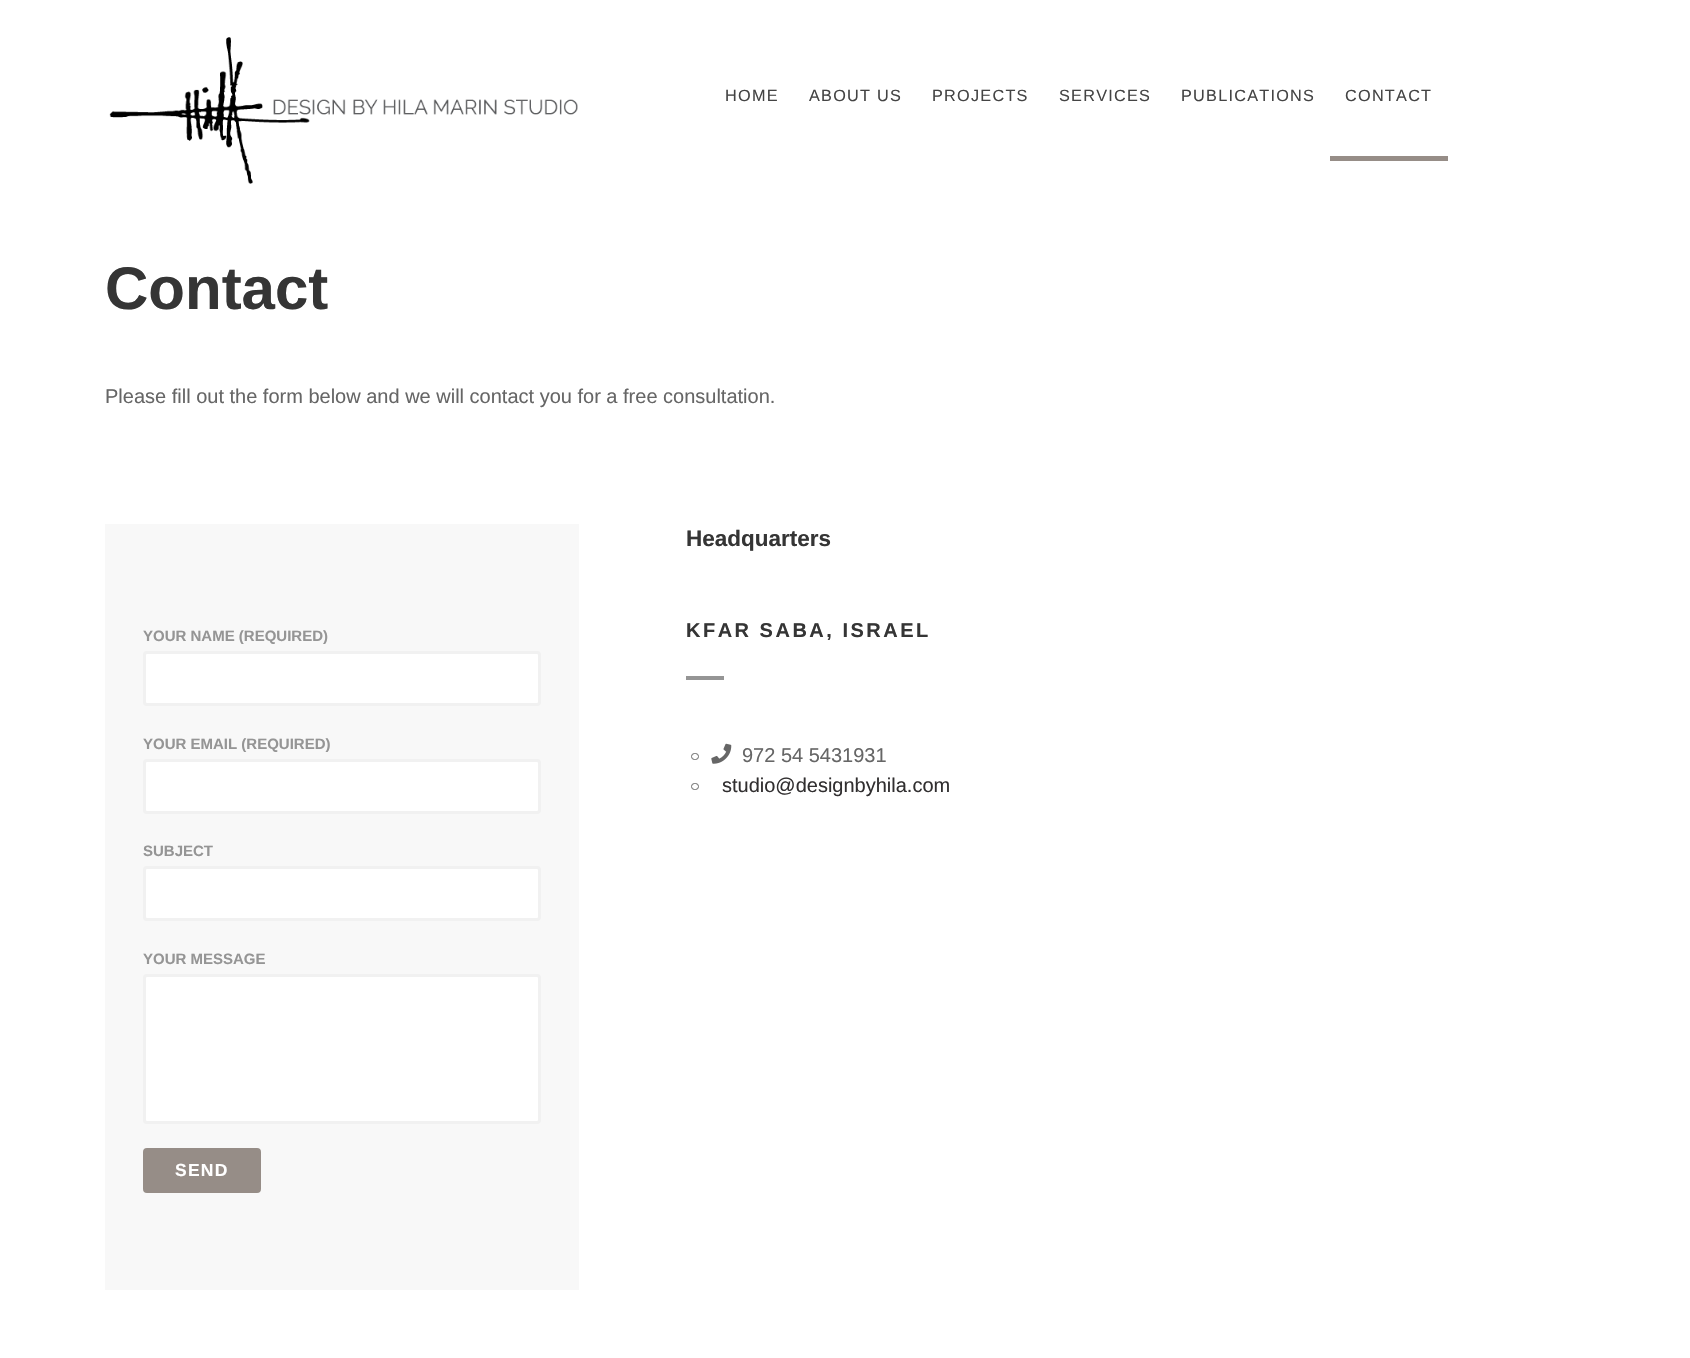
#include "include/core/SkBlurTypes.h"
#include "include/core/SkCanvas.h"
#include "include/core/SkData.h"
#include "include/core/SkFont.h"
#include "include/core/SkFontMgr.h"
#include "include/core/SkImage.h"
#include "include/core/SkMaskFilter.h"
#include "include/core/SkPaint.h"
#include "include/core/SkPathBuilder.h"
#include "include/core/SkTextBlob.h"
#include "include/effects/SkDashPathEffect.h"
#include "include/effects/SkGradientShader.h"
#include "include/utils/SkParsePath.h"

extern sk_sp<SkFontMgr> fontMgr;

static SkFont font(const char* family, int weight, float size, bool italic = false) {
    SkFontStyle style(weight, SkFontStyle::kNormal_Width,
        italic ? SkFontStyle::kItalic_Slant : SkFontStyle::kUpright_Slant);
    SkFont result(fontMgr->matchFamilyStyle(family, style), size);
    result.setSubpixel(true);
    return result;
}

static void drawLabel(SkCanvas* canvas, const char* s, float x, float y, const SkFont& font, SkColor color) {
    SkPaint ink(SkColor4f::FromColor(color));
    ink.setAntiAlias(true);
    canvas->drawString(s, x, y, font, ink);
}

static void drawTracked(SkCanvas* canvas, const char* s, float x, float y, const SkFont& font, const SkPaint& ink, float letter, float word) {
    std::vector<SkGlyphID> glyphs(font.countText(s, strlen(s), SkTextEncoding::kUTF8));
    std::vector<float> xs(glyphs.size());
    font.textToGlyphs(s, strlen(s), SkTextEncoding::kUTF8, glyphs);
    font.getXPos(glyphs, xs, x);
    float extra = 0;
    for (size_t i = 0; i < glyphs.size(); i++) {
        xs[i] += extra;
        extra += letter + word * (glyphs[i] == font.unicharToGlyph(' '));
    }
    canvas->drawTextBlob(SkTextBlob::MakeFromPosHGlyphs(glyphs, xs, y, font), 0, 0, ink);
}

static void fillRect(SkCanvas* canvas, float x, float y, float w, float h, SkColor color) {
    SkPaint ink(SkColor4f::FromColor(color));
    ink.setAntiAlias(true);
    canvas->drawRect(SkRect::MakeXYWH(x, y, w, h), ink);
}

static void drawPhoto(SkCanvas* canvas, const char* path, float x, float y, float w, float h) {
    auto image = SkImages::DeferredFromEncodedData(SkData::MakeFromFileName(path));
    canvas->drawImageRect(image, SkRect::MakeXYWH(x, y, w, h), SkSamplingOptions());
}

void draw(SkCanvas* canvas) {
    SkPaint paint;
    paint.setAntiAlias(true);
    canvas->clear(0xFFFFFFFF);
    drawPhoto(canvas, "assets/img1.png", 109, 37, 469, 147);
    SkFont font1 = font("Liberation Sans", 400, 16.25f);
    paint.setColor(0xFF444444);
    drawTracked(canvas, "HOME", 725, 101, font1, paint, 1.25f, 0);
    drawTracked(canvas, "ABOUT US", 809, 101, font1, paint, 1.25f, 0);
    drawTracked(canvas, "PROJECTS", 932, 101, font1, paint, 1.25f, 0);
    drawTracked(canvas, "SERVICES", 1059, 101, font1, paint, 1.25f, 0);
    drawTracked(canvas, "PUBLICATIONS", 1181, 101, font1, paint, 1.25f, 0);
    fillRect(canvas, 1330, 156, 118, 5, 0xFF968D87);
    drawTracked(canvas, "CONTACT", 1345, 101, font1, paint, 1.25f, 0);
    SkFont font2 = font("Liberation Sans", 700, 60);
    drawLabel(canvas, "Contact", 105, 309, font2, 0xFF353535);
    SkFont font3 = font("Liberation Sans", 400, 20);
    drawLabel(canvas, "Please fill out the form below and we will contact you for a free consultation.", 105, 403, font3, 0xFF666666);
    fillRect(canvas, 105, 524, 474, 766, 0xFFF8F8F8);
    SkFont font4 = font("Liberation Sans", 700, 15);
    drawLabel(canvas, "YOUR NAME (REQUIRED)", 143, 641, font4, 0xFF959595);
    paint.setColor(0xFFFFFFFF);
    canvas->drawRoundRect(SkRect::MakeXYWH(144.5f, 652.5f, 395, 52), 2.5f, 2.5f, paint);
    paint.setStroke(true);
    paint.setStrokeWidth(3);
    paint.setColor(0xFFF1F1F1);
    canvas->drawRoundRect(SkRect::MakeXYWH(144.5f, 652.5f, 395, 52), 2.5f, 2.5f, paint);
    drawLabel(canvas, "YOUR EMAIL (REQUIRED)", 143, 749, font4, 0xFF959595);
    paint.setStroke(false);
    paint.setColor(0xFFFFFFFF);
    canvas->drawRoundRect(SkRect::MakeXYWH(144.5f, 760.5f, 395, 52), 2.5f, 2.5f, paint);
    paint.setStroke(true);
    paint.setColor(0xFFF1F1F1);
    canvas->drawRoundRect(SkRect::MakeXYWH(144.5f, 760.5f, 395, 52), 2.5f, 2.5f, paint);
    drawLabel(canvas, "SUBJECT", 143, 856, font4, 0xFF959595);
    paint.setStroke(false);
    paint.setColor(0xFFFFFFFF);
    canvas->drawRoundRect(SkRect::MakeXYWH(144.5f, 867.5f, 395, 52), 2.5f, 2.5f, paint);
    paint.setStroke(true);
    paint.setColor(0xFFF1F1F1);
    canvas->drawRoundRect(SkRect::MakeXYWH(144.5f, 867.5f, 395, 52), 2.5f, 2.5f, paint);
    drawLabel(canvas, "YOUR MESSAGE", 143, 964, font4, 0xFF959595);
    paint.setStroke(false);
    paint.setColor(0xFFFFFFFF);
    canvas->drawRoundRect(SkRect::MakeXYWH(144.5f, 975.5f, 395, 147), 2.5f, 2.5f, paint);
    paint.setStroke(true);
    paint.setColor(0xFFF1F1F1);
    canvas->drawRoundRect(SkRect::MakeXYWH(144.5f, 975.5f, 395, 147), 2.5f, 2.5f, paint);
    paint.setStroke(false);
    paint.setColor(0xFF968D87);
    canvas->drawRoundRect(SkRect::MakeXYWH(144.5f, 1149.5f, 115, 42), 2.5f, 2.5f, paint);
    paint.setStroke(true);
    canvas->drawRoundRect(SkRect::MakeXYWH(144.5f, 1149.5f, 115, 42), 2.5f, 2.5f, paint);
    SkFont font5 = font("Liberation Sans", 700, 17.5f);
    paint.setStroke(false);
    paint.setColor(0xFFFFFFFF);
    drawTracked(canvas, "SEND", 175, 1176, font5, paint, 1.25f, 0);
    SkFont font6 = font("Liberation Sans", 700, 22.5f);
    drawLabel(canvas, "Headquarters", 686, 546, font6, 0xFF353535);
    SkFont font7 = font("Liberation Sans", 700, 20);
    paint.setColor(0xFF353535);
    drawTracked(canvas, "KFAR SABA, ISRAEL", 686, 637, font7, paint, 2.5f, 0);
    fillRect(canvas, 686, 676, 38, 4, 0xFF959595);
    paint.setStroke(true);
    paint.setStrokeWidth(1);
    paint.setColor(0xFF666666);
    canvas->drawRoundRect(SkRect::MakeXYWH(691.5f, 753.5f, 7, 6), 3, 3, paint);
    drawPhoto(canvas, "assets/img2.png", 711, 743, 21, 21);
    drawLabel(canvas, "972 54 5431931", 742, 762, font3, 0xFF666666);
    canvas->drawRoundRect(SkRect::MakeXYWH(691.5f, 783.5f, 7, 6), 3, 3, paint);
    drawLabel(canvas, "studio@designbyhila.com", 722, 792, font3, 0xFF312F30);
}
